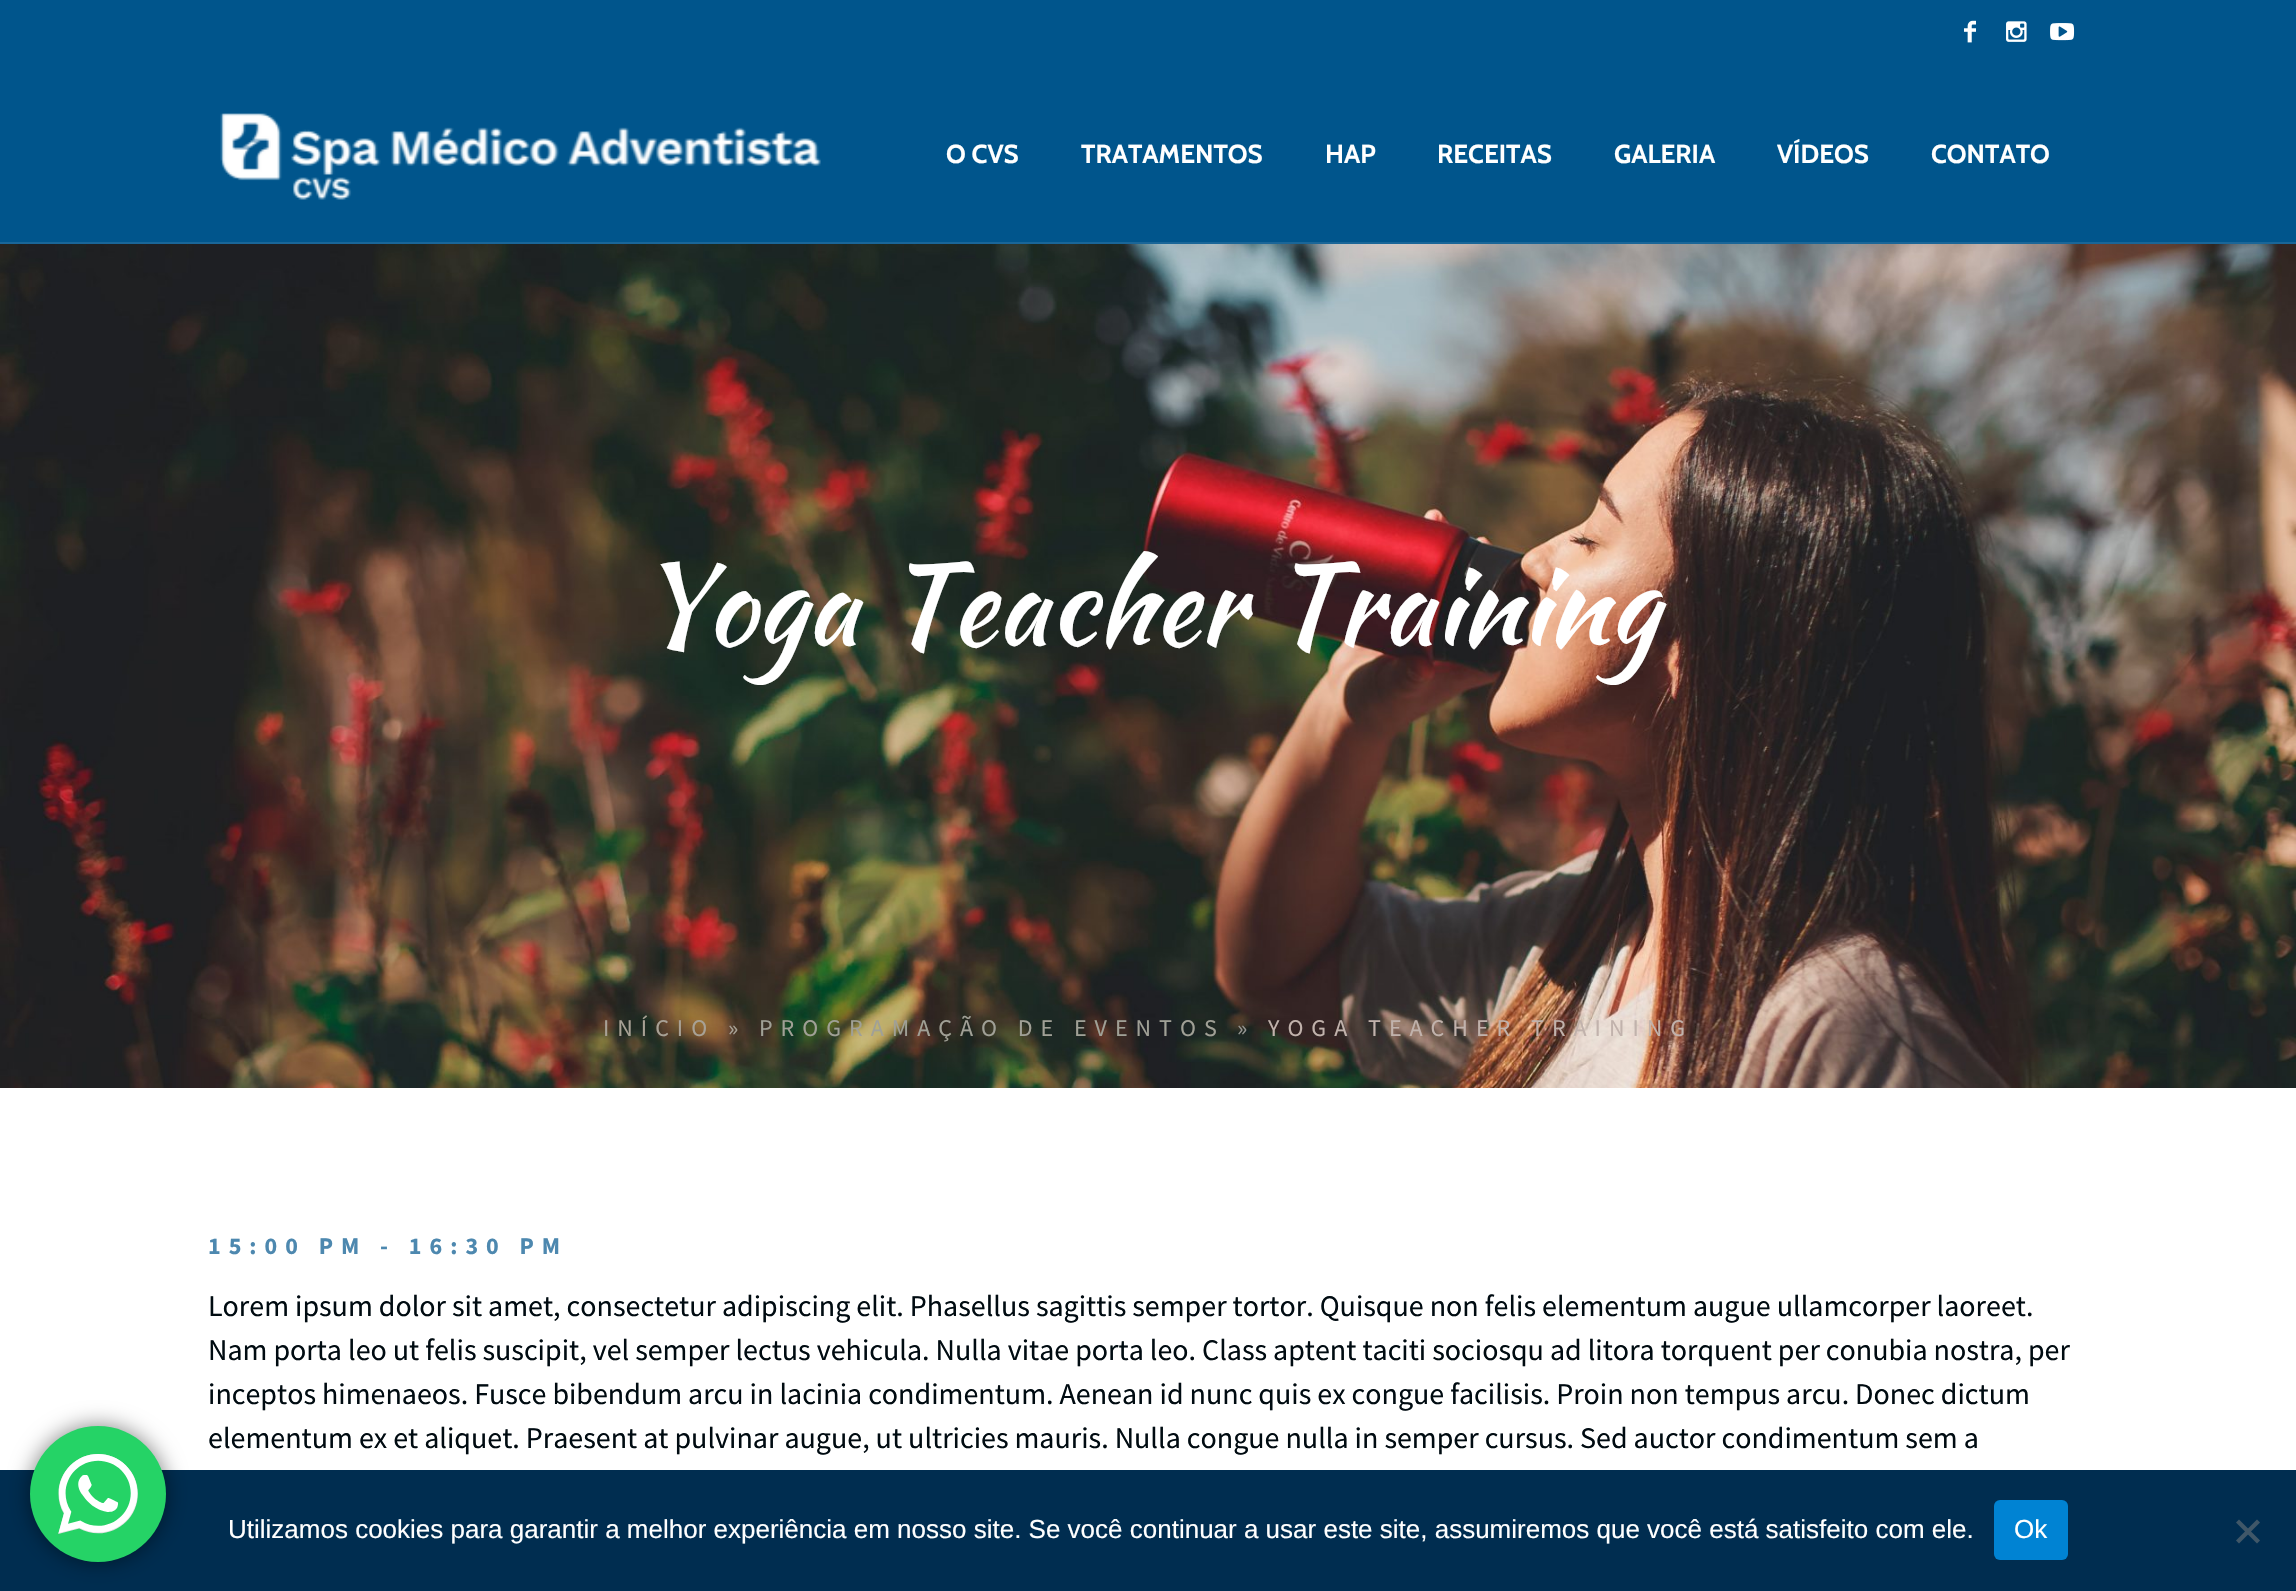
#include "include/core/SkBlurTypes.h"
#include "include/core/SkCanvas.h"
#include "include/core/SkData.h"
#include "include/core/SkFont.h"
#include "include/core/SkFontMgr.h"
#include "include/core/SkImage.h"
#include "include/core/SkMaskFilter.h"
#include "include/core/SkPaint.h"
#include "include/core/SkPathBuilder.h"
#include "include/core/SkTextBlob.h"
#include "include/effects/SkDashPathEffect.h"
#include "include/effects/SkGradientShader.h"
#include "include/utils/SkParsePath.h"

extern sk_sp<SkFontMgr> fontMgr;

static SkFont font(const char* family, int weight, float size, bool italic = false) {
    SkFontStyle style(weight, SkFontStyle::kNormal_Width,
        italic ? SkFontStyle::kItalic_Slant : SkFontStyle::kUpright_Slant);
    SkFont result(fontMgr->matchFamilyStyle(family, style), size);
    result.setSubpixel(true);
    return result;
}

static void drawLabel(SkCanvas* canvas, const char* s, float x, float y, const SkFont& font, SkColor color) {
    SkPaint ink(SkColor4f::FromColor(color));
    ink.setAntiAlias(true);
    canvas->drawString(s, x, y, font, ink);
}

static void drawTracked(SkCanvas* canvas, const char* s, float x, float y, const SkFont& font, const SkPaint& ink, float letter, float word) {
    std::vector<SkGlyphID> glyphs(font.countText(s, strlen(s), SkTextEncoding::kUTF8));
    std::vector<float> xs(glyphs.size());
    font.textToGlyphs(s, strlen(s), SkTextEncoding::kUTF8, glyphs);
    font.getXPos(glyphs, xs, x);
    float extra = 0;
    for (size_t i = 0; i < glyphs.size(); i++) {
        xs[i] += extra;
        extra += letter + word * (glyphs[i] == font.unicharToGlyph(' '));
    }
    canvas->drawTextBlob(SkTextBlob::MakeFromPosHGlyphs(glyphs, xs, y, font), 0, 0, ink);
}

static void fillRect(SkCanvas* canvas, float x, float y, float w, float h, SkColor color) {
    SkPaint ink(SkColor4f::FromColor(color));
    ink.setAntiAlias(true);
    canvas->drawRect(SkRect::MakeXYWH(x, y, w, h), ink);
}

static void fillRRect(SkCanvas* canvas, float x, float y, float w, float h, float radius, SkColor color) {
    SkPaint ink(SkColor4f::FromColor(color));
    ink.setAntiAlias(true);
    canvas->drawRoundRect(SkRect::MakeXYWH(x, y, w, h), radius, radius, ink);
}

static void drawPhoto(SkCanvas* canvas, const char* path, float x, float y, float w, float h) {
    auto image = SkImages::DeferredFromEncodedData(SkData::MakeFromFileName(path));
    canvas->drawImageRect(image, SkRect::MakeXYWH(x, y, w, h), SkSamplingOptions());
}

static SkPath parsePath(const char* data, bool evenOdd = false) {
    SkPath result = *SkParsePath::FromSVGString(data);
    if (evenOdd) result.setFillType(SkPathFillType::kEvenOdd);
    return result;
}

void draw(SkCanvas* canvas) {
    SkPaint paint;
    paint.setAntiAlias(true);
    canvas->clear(0xFFFFFFFF);
    fillRect(canvas, 0, 0, 2296, 242, 0xFF00558C);
    drawPhoto(canvas, "assets/img1.png", 1964, 20, 12, 23);
    drawPhoto(canvas, "assets/img2.png", 2006, 21, 21, 21);
    drawPhoto(canvas, "assets/img3.png", 2050, 23, 25, 18);
    fillRect(canvas, 0, 242, 2296, 2, 0xFF1A6698);
    drawPhoto(canvas, "assets/img4.png", 220, 113, 601, 87);
    SkFont font1 = font("Cabin", 700, 26);
    drawLabel(canvas, "O CVS", 946, 163, font1, 0xFFFFFFFF);
    drawLabel(canvas, "TRATAMENTOS", 1081, 163, font1, 0xFFFFFFFF);
    drawLabel(canvas, "HAP", 1325, 163, font1, 0xFFFFFFFF);
    drawLabel(canvas, "RECEITAS", 1437, 163, font1, 0xFFFFFFFF);
    drawLabel(canvas, "GALERIA", 1614, 163, font1, 0xFFFFFFFF);
    drawLabel(canvas, "VÍDEOS", 1777, 163, font1, 0xFFFFFFFF);
    drawLabel(canvas, "CONTATO", 1931, 163, font1, 0xFFFFFFFF);
    drawPhoto(canvas, "assets/img5.png", 0, 244, 2296, 844);
    SkFont font2 = font("Kaushan Script", 400, 112);
    drawLabel(canvas, "Yoga Teacher Training", 637, 644, font2, 0xFFFFFFFF);
    SkFont font3 = font("Source Sans Pro", 400, 24);
    paint.setColor(0xFFA8A195);
    drawTracked(canvas, "INÍCIO", 603, 1036, font3, paint, 8, 0);
    drawTracked(canvas, "»", 728, 1036, font3, paint, 8, 0);
    paint.setColor(0xFFA0A096);
    drawTracked(canvas, "PROGRAMAÇÃO DE EVENTOS", 759, 1036, font3, paint, 8, 0);
    paint.setColor(0xFF949591);
    drawTracked(canvas, "»", 1237, 1036, font3, paint, 8, 0);
    paint.setColor(0xFFC1B2AC);
    drawTracked(canvas, "YOGA TEACHER TRAINING", 1268, 1036, font3, paint, 8, 0);
    SkFont font4 = font("Source Sans Pro", 700, 24);
    paint.setColor(0xFF4D88AF);
    drawTracked(canvas, "15:00 PM - 16:30 PM", 208, 1254, font4, paint, 8, 0);
    SkFont font5 = font("Source Sans Pro", 400, 30);
    drawLabel(canvas, "Lorem ipsum dolor sit amet, consectetur adipiscing elit. Phasellus sagittis semper tortor. Quisque non felis elementum augue ullamcorper laoreet.", 208, 1316, font5, 0xFF000B11);
    drawLabel(canvas, "Nam porta leo ut felis suscipit, vel semper lectus vehicula. Nulla vitae porta leo. Class aptent taciti sociosqu ad litora torquent per conubia nostra, per", 208, 1360, font5, 0xFF000B11);
    drawLabel(canvas, "inceptos himenaeos. Fusce bibendum arcu in lacinia condimentum. Aenean id nunc quis ex congue facilisis. Proin non tempus arcu. Donec dictum", 208, 1404, font5, 0xFF000B11);
    drawLabel(canvas, "elementum ex et aliquet. Praesent at pulvinar augue, ut ultricies mauris. Nulla congue nulla in semper cursus. Sed auctor condimentum sem a", 208, 1448, font5, 0xFF000B11);
    fillRect(canvas, 0, 1470, 2296, 121, 0xFF002D50);
    paint.setColor(0x80000000);
    paint.setMaskFilter(SkMaskFilter::MakeBlur(kNormal_SkBlurStyle, 11));
    canvas->drawRoundRect(SkRect::MakeXYWH(30, 1426, 136, 136), 68, 68, paint);
    paint.setMaskFilter(nullptr);
    paint.setColor(0xFF25D366);
    canvas->drawCircle(98, 1494, 68, paint);
    drawPhoto(canvas, "assets/img6.png", 58, 1454, 80, 80);
    SkFont font6 = font("Liberation Sans", 400, 26);
    drawLabel(canvas, "Utilizamos cookies para garantir a melhor experiência em nosso site. Se você continuar a usar este site, assumiremos que você está satisfeito com ele.", 228, 1538, font6, 0xFFFFFFFF);
    fillRRect(canvas, 1994, 1500, 74, 60, 6, 0xFF0083D3);
    drawLabel(canvas, "Ok", 2014, 1538, font6, 0xFFFFFFFF);
    paint.setColor(0xFF405768);
    canvas->drawPath(parsePath("M2257 1519.5L2260 1522.5L2239 1543.5L2236 1540.5Z"), paint);
    canvas->drawPath(parsePath("M2236 1522.5L2239 1519.5L2260 1540.5L2257 1543.5Z"), paint);
}
